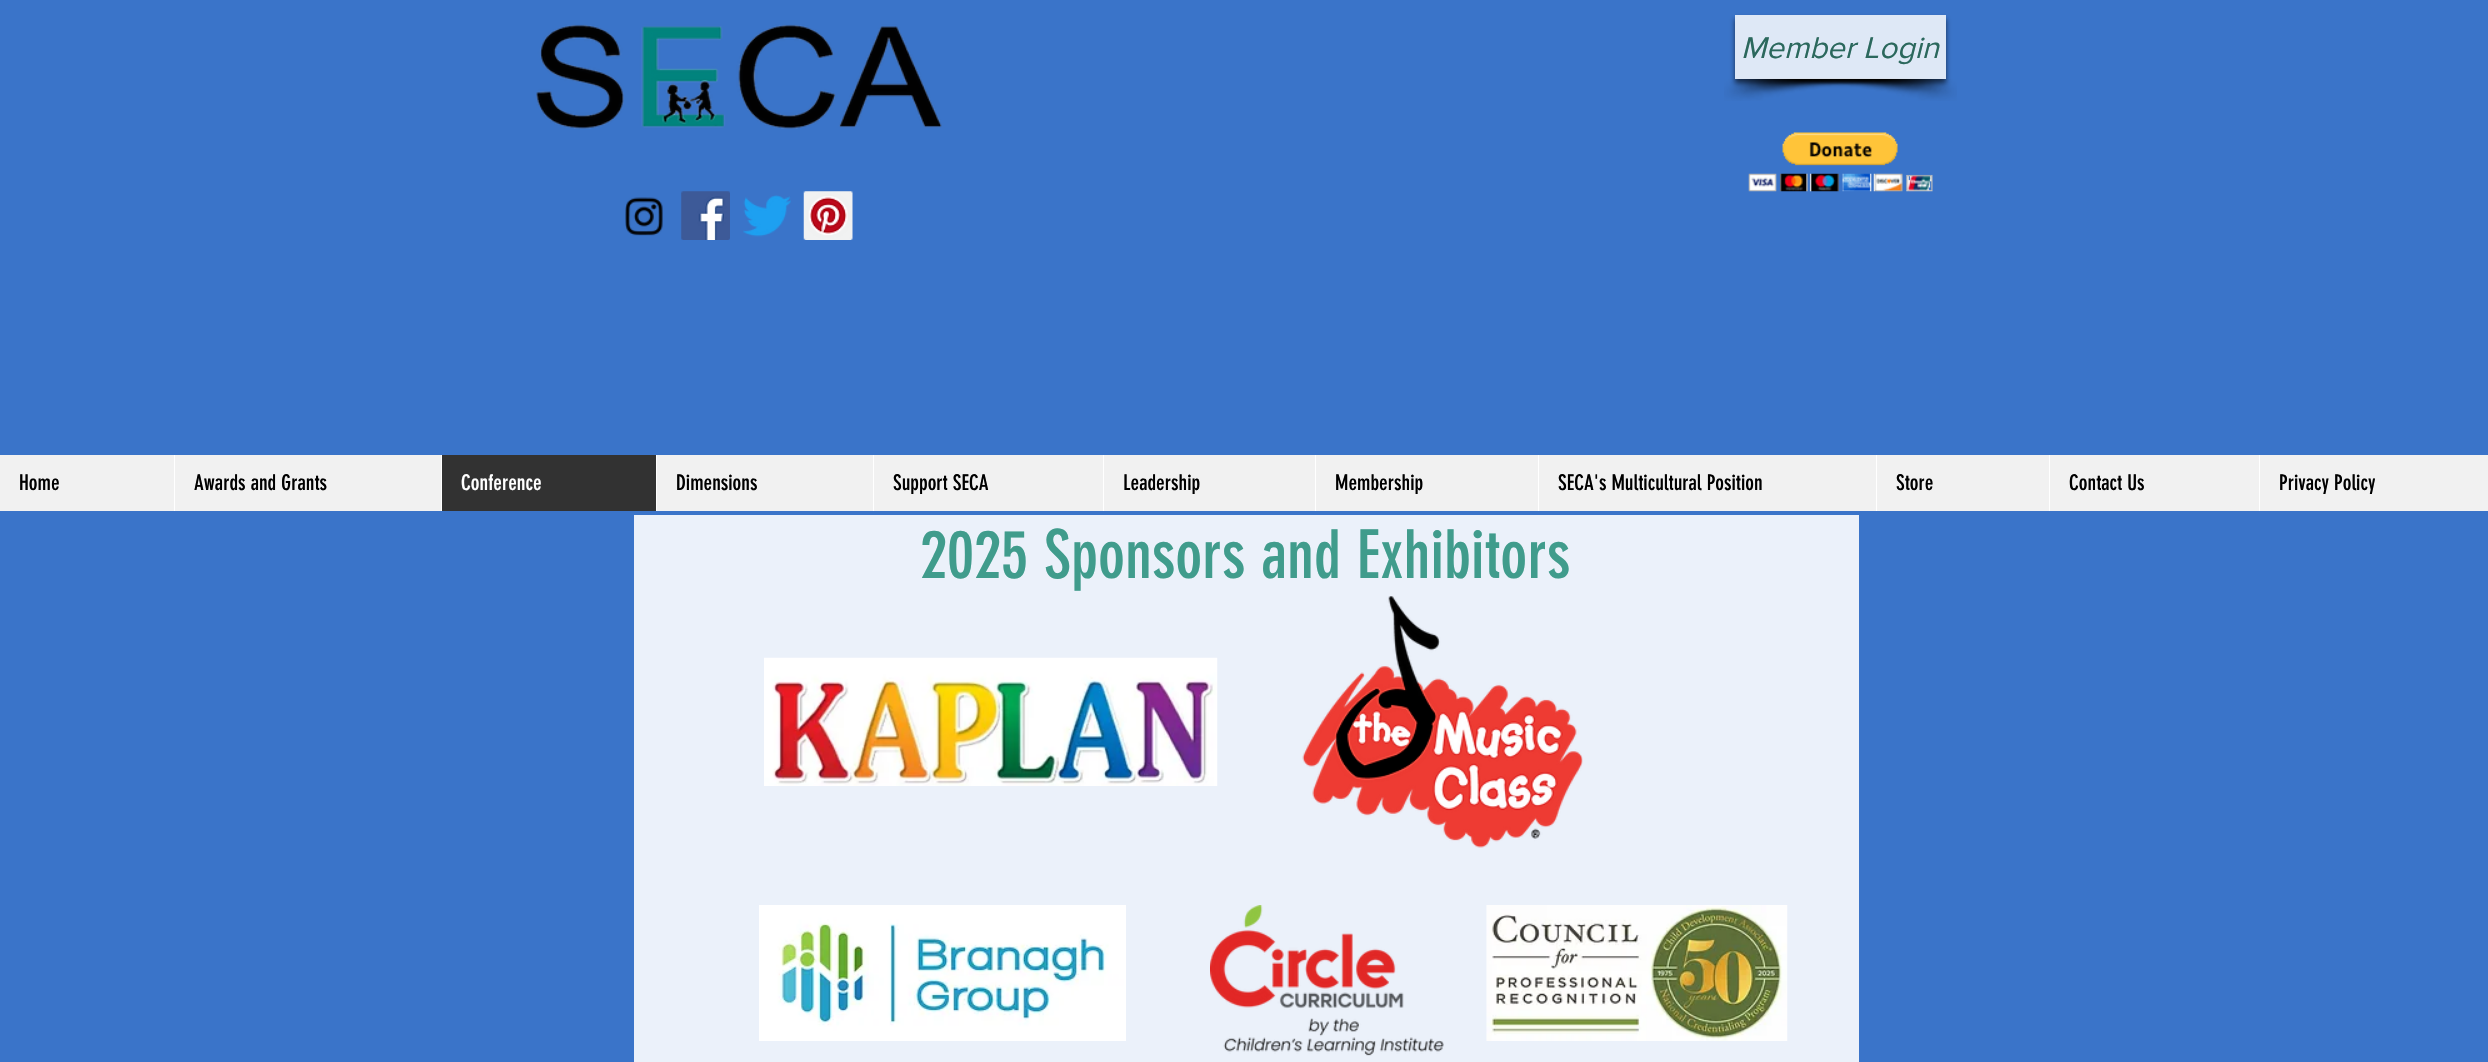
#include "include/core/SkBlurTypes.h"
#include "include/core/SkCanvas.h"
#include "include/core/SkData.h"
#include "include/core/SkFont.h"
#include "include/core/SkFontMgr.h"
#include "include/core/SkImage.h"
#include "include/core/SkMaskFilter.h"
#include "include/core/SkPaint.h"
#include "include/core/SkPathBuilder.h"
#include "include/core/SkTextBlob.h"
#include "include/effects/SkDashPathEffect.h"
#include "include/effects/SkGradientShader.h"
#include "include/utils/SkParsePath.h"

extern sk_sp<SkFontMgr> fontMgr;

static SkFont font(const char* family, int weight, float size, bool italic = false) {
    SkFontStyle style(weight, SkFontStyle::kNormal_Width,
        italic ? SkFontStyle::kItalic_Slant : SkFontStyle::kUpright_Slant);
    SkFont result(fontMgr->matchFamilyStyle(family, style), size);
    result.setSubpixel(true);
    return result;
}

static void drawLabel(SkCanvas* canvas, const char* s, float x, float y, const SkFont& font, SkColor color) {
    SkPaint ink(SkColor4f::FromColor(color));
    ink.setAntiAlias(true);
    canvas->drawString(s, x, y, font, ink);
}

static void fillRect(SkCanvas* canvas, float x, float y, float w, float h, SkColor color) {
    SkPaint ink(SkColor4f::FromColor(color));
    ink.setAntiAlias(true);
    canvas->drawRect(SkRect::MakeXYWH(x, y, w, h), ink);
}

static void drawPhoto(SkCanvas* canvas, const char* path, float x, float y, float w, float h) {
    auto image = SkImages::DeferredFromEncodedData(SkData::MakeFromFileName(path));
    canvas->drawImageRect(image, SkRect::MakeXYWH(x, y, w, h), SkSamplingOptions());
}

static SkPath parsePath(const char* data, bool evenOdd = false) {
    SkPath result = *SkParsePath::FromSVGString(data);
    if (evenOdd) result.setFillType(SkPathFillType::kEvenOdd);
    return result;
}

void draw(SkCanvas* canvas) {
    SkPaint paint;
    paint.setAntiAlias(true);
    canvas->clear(0xFF3A74C9);
    drawPhoto(canvas, "assets/img1.png", 536, 24, 406, 105);
    drawPhoto(canvas, "assets/img2.png", 1724, 78, 186, 23);
    drawPhoto(canvas, "assets/img3.png", 1792, 78, 165, 23);
    canvas->save();
    canvas->clipPath(parsePath("M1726 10H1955V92H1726ZM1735 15H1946V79H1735Z", true), true);
    paint.setColor(0x99000000);
    paint.setMaskFilter(SkMaskFilter::MakeBlur(kNormal_SkBlurStyle, 2.5f));
    canvas->drawRect(SkRect::MakeXYWH(1735, 19, 211, 64), paint);
    paint.setMaskFilter(nullptr);
    canvas->restore();
    fillRect(canvas, 1735, 15, 211, 64, 0xD4FFFFFF);
    SkFont font1 = font("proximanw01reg", 400, 31.25f, true);
    drawLabel(canvas, "Member Login", 1741, 58, font1, 0xFF2B685D);
    drawPhoto(canvas, "assets/img4.png", 1748, 132, 185, 60);
    drawPhoto(canvas, "assets/img5.png", 625, 197, 38, 39);
    drawPhoto(canvas, "assets/img6.png", 681, 191, 49, 49);
    drawPhoto(canvas, "assets/img7.png", 743, 195, 48, 42);
    drawPhoto(canvas, "assets/img8.png", 803, 191, 50, 49);
    fillRect(canvas, 0, 455, 2488, 56, 0xFFF1F1F1);
    SkFont font2 = font("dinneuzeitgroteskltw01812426", 400, 21.25f);
    drawLabel(canvas, "Home", 19, 490, font2, 0xFF000000);
    fillRect(canvas, 174, 455, 1, 56, 0xFFFFFFFF);
    drawLabel(canvas, "Awards and Grants", 194, 490, font2, 0xFF000000);
    fillRect(canvas, 442, 455, 214, 56, 0xFF323232);
    fillRect(canvas, 441, 455, 1, 56, 0xFFFFFFFF);
    drawLabel(canvas, "Conference", 461, 490, font2, 0xFFFFFFFF);
    fillRect(canvas, 656, 455, 1, 56, 0xFFFFFFFF);
    drawLabel(canvas, "Dimensions", 676, 490, font2, 0xFF000000);
    fillRect(canvas, 873, 455, 1, 56, 0xFFFFFFFF);
    drawLabel(canvas, "Support SECA", 893, 490, font2, 0xFF000000);
    fillRect(canvas, 1103, 455, 1, 56, 0xFFFFFFFF);
    drawLabel(canvas, "Leadership", 1123, 490, font2, 0xFF000000);
    fillRect(canvas, 1315, 455, 1, 56, 0xFFFFFFFF);
    drawLabel(canvas, "Membership", 1335, 490, font2, 0xFF000000);
    fillRect(canvas, 1538, 455, 1, 56, 0xFFFFFFFF);
    drawLabel(canvas, "SECA's Multicultural Position", 1558, 490, font2, 0xFF000000);
    fillRect(canvas, 1876, 455, 1, 56, 0xFFFFFFFF);
    drawLabel(canvas, "Store", 1896, 490, font2, 0xFF000000);
    fillRect(canvas, 2049, 455, 1, 56, 0xFFFFFFFF);
    drawLabel(canvas, "Contact Us", 2069, 490, font2, 0xFF000000);
    fillRect(canvas, 2259, 455, 1, 56, 0xFFFFFFFF);
    drawLabel(canvas, "Privacy Policy", 2279, 490, font2, 0xFF000000);
    fillRect(canvas, 634, 515, 1225, 547, 0xFFEBF1FA);
    SkFont font3 = font("dinneuzeitgroteskltw01812426", 400, 66.25f);
    drawLabel(canvas, "2025 Sponsors and Exhibitors", 920, 578, font3, 0xFF409C8C);
    drawPhoto(canvas, "assets/img9.png", 764, 657, 454, 129);
    drawPhoto(canvas, "assets/img10.png", 1302, 596, 281, 252);
    drawPhoto(canvas, "assets/img11.png", 759, 905, 367, 136);
    drawPhoto(canvas, "assets/img12.png", 1210, 905, 234, 151);
    drawPhoto(canvas, "assets/img13.png", 1486, 905, 302, 136);
}
